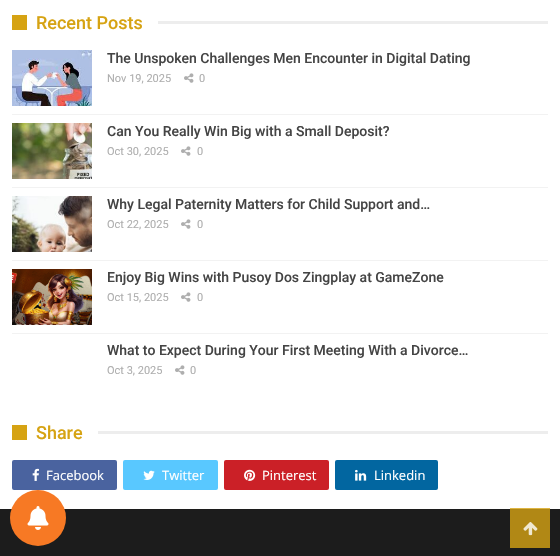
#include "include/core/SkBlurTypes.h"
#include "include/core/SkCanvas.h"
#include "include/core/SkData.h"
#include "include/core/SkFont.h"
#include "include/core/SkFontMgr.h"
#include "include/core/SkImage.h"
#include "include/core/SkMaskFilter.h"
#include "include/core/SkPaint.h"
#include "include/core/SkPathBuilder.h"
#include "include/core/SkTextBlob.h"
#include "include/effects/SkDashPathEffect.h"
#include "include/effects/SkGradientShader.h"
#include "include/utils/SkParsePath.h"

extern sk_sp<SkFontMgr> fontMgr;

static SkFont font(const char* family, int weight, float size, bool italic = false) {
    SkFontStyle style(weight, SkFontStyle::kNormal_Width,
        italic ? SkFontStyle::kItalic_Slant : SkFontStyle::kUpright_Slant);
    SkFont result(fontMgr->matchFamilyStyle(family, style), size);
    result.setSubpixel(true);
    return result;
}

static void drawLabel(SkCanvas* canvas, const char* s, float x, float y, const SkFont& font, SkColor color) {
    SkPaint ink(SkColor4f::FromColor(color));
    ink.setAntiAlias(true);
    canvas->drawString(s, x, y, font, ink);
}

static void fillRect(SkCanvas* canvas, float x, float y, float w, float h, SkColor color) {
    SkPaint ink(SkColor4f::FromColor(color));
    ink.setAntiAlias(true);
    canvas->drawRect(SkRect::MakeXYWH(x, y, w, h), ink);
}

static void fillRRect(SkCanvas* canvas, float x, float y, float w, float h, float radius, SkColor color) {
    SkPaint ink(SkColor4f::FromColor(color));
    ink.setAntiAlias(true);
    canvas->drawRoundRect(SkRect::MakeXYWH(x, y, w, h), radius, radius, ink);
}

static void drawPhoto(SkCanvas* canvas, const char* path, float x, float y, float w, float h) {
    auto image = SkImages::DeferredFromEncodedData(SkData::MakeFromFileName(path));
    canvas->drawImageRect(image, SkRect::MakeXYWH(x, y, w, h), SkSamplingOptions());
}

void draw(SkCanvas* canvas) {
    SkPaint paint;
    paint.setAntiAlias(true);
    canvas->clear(0xFFFFFFFF);
    fillRect(canvas, 510, 508, 40, 1, 0xFFDEB542);
    fillRect(canvas, 12, 15, 15, 15, 0xFFD6A313);
    SkFont font1 = font("Roboto", 500, 18);
    drawLabel(canvas, "Recent Posts", 36, 29, font1, 0xFFD6A313);
    fillRect(canvas, 158, 21, 390, 3, 0xFFEDEDED);
    fillRect(canvas, 12, 114, 536, 1, 0xFFF2F2F2);
    drawPhoto(canvas, "assets/img1.png", 12, 50, 80, 56);
    SkFont font2 = font("Roboto", 500, 14);
    drawLabel(canvas, "The Unspoken Challenges Men Encounter in Digital Dating", 107, 63, font2, 0xFF444444);
    SkFont font3 = font("Roboto", 400, 11);
    drawLabel(canvas, "Nov 19, 2025", 107, 82, font3, 0xFFAEAEAE);
    drawPhoto(canvas, "assets/img2.png", 184, 73, 10, 10);
    drawLabel(canvas, "0", 199, 82, font3, 0xFFAEAEAE);
    fillRect(canvas, 12, 187, 536, 1, 0xFFF2F2F2);
    drawPhoto(canvas, "assets/img3.png", 12, 123, 80, 56);
    drawLabel(canvas, "Can You Really Win Big with a Small Deposit?", 107, 136, font2, 0xFF444444);
    drawLabel(canvas, "Oct 30, 2025", 107, 155, font3, 0xFFAEAEAE);
    drawPhoto(canvas, "assets/img2.png", 181, 146, 10, 10);
    drawLabel(canvas, "0", 197, 155, font3, 0xFFAEAEAE);
    fillRect(canvas, 12, 260, 536, 1, 0xFFF2F2F2);
    drawPhoto(canvas, "assets/img4.png", 12, 196, 80, 56);
    drawLabel(canvas, "Why Legal Paternity Matters for Child Support and…", 107, 209, font2, 0xFF444444);
    drawLabel(canvas, "Oct 22, 2025", 107, 228, font3, 0xFFAEAEAE);
    drawPhoto(canvas, "assets/img2.png", 181, 219, 10, 10);
    drawLabel(canvas, "0", 197, 228, font3, 0xFFAEAEAE);
    fillRect(canvas, 12, 333, 536, 1, 0xFFF2F2F2);
    drawPhoto(canvas, "assets/img5.png", 12, 269, 80, 56);
    drawLabel(canvas, "Enjoy Big Wins with Pusoy Dos Zingplay at GameZone", 107, 282, font2, 0xFF444444);
    drawLabel(canvas, "Oct 15, 2025", 107, 301, font3, 0xFFAEAEAE);
    drawPhoto(canvas, "assets/img2.png", 181, 292, 10, 10);
    drawLabel(canvas, "0", 197, 301, font3, 0xFFAEAEAE);
    drawLabel(canvas, "What to Expect During Your First Meeting With a Divorce…", 107, 355, font2, 0xFF444444);
    drawLabel(canvas, "Oct 3, 2025", 107, 374, font3, 0xFFAEAEAE);
    drawPhoto(canvas, "assets/img2.png", 175, 365, 10, 10);
    drawLabel(canvas, "0", 190, 374, font3, 0xFFAEAEAE);
    fillRect(canvas, 12, 425, 15, 15, 0xFFD6A313);
    drawLabel(canvas, "Share", 36, 439, font1, 0xFFD6A313);
    fillRect(canvas, 98, 431, 450, 3, 0xFFEDEDED);
    fillRRect(canvas, 12, 460, 105, 30, 2, 0xFF4A639F);
    drawPhoto(canvas, "assets/img6.png", 32, 468, 7, 13);
    SkFont font4 = font("Open Sans", 400, 13);
    drawLabel(canvas, "Facebook", 46, 480, font4, 0xFFFFFFFF);
    fillRRect(canvas, 123, 460, 95, 30, 2, 0xFF59C8FF);
    drawPhoto(canvas, "assets/img7.png", 143, 470, 12, 10);
    drawLabel(canvas, "Twitter", 162, 480, font4, 0xFFFFFFFF);
    fillRRect(canvas, 224, 460, 105, 30, 2, 0xFFCB2027);
    drawPhoto(canvas, "assets/img8.png", 244, 469, 12, 12);
    drawLabel(canvas, "Pinterest", 262, 480, font4, 0xFFFFFFFF);
    fillRRect(canvas, 335, 460, 103, 30, 2, 0xFF0266A0);
    drawPhoto(canvas, "assets/img9.png", 355, 469, 12, 12);
    drawLabel(canvas, "Linkedin", 374, 480, font4, 0xFFFFFFFF);
    fillRect(canvas, 0, 509, 560, 47, 0xFF1C1C1C);
    fillRect(canvas, 510, 509, 40, 39, 0xFFB18815);
    paint.setColor(0xFFF77924);
    canvas->drawCircle(38, 518, 28, paint);
    drawPhoto(canvas, "assets/img10.png", 27, 506, 22, 24);
    drawPhoto(canvas, "assets/img11.png", 523, 522, 15, 14);
}
